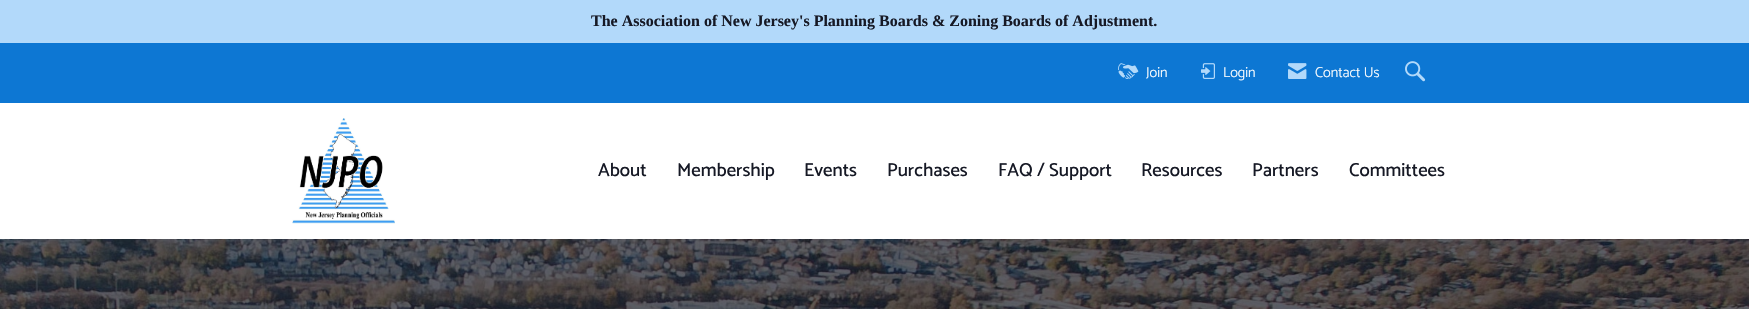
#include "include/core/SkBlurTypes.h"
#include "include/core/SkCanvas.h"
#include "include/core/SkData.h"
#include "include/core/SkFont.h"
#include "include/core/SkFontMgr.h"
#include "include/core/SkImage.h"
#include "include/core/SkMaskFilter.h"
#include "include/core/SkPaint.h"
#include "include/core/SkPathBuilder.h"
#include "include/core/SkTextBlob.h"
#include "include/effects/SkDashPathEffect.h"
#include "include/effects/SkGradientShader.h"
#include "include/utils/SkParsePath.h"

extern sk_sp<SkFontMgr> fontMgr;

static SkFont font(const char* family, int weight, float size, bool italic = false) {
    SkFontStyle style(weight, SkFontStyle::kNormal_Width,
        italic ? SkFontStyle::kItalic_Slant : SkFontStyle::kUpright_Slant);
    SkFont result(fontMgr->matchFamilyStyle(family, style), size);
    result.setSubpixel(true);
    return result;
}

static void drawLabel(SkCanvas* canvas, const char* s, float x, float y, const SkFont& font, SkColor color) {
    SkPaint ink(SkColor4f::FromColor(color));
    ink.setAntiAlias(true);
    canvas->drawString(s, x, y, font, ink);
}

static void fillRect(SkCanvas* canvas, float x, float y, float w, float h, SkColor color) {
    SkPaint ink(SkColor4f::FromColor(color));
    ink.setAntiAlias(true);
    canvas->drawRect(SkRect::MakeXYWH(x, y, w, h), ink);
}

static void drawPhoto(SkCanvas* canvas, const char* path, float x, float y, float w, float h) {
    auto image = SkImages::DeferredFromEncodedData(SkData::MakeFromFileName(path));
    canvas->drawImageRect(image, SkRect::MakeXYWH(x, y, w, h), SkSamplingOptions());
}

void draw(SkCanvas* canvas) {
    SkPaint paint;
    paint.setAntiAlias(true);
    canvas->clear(0xFFB2D9FA);
    SkFont font1 = font("Liberation Serif", 700, 16);
    drawLabel(canvas, "The Association of New Jersey's Planning Boards & Zoning Boards of Adjustment.", 591, 26, font1, 0xFF161925);
    fillRect(canvas, 0, 103, 1749, 136, 0xFFFFFFFF);
    fillRect(canvas, 0, 43, 1749, 60, 0xFF0D77D3);
    drawPhoto(canvas, "assets/img1.png", 1118, 63, 21, 16);
    SkFont font2 = font("Catamaran", 300, 14.5f);
    drawLabel(canvas, "Join", 1146, 77, font2, 0xFFFFFFFF);
    drawPhoto(canvas, "assets/img2.png", 1201, 63, 14, 16);
    drawLabel(canvas, "Login", 1223, 77, font2, 0xFFFFFFFF);
    drawPhoto(canvas, "assets/img3.png", 1288, 63, 19, 16);
    drawLabel(canvas, "Contact Us", 1315, 77, font2, 0xFFFFFFFF);
    drawPhoto(canvas, "assets/img4.png", 1405, 61, 21, 21);
    drawPhoto(canvas, "assets/img5.png", 292, 118, 103, 106);
    SkFont font3 = font("Catamaran", 500, 18.75f);
    drawLabel(canvas, "About", 598, 176, font3, 0xFF161925);
    drawLabel(canvas, "Membership", 677, 176, font3, 0xFF161925);
    drawLabel(canvas, "Events", 804, 176, font3, 0xFF161925);
    drawLabel(canvas, "Purchases", 887, 176, font3, 0xFF161925);
    drawLabel(canvas, "FAQ / Support", 998, 176, font3, 0xFF161925);
    drawLabel(canvas, "Resources", 1141, 176, font3, 0xFF161925);
    drawLabel(canvas, "Partners", 1252, 176, font3, 0xFF161925);
    drawLabel(canvas, "Committees", 1349, 176, font3, 0xFF161925);
    drawPhoto(canvas, "assets/img6.png", 0, 239, 1749, 70);
}
